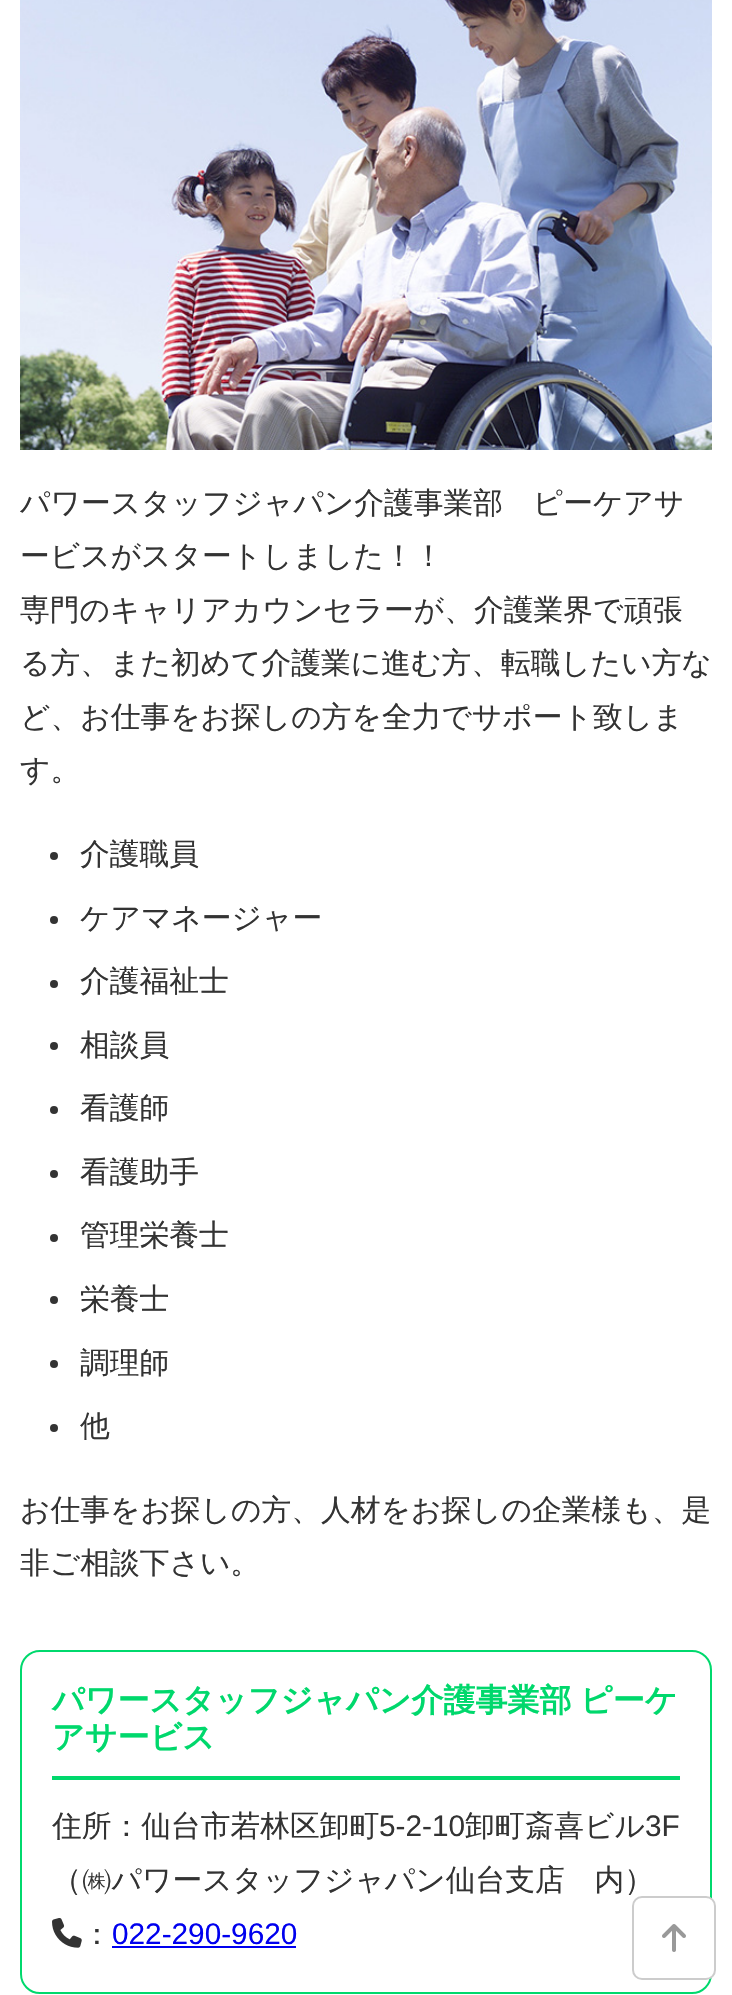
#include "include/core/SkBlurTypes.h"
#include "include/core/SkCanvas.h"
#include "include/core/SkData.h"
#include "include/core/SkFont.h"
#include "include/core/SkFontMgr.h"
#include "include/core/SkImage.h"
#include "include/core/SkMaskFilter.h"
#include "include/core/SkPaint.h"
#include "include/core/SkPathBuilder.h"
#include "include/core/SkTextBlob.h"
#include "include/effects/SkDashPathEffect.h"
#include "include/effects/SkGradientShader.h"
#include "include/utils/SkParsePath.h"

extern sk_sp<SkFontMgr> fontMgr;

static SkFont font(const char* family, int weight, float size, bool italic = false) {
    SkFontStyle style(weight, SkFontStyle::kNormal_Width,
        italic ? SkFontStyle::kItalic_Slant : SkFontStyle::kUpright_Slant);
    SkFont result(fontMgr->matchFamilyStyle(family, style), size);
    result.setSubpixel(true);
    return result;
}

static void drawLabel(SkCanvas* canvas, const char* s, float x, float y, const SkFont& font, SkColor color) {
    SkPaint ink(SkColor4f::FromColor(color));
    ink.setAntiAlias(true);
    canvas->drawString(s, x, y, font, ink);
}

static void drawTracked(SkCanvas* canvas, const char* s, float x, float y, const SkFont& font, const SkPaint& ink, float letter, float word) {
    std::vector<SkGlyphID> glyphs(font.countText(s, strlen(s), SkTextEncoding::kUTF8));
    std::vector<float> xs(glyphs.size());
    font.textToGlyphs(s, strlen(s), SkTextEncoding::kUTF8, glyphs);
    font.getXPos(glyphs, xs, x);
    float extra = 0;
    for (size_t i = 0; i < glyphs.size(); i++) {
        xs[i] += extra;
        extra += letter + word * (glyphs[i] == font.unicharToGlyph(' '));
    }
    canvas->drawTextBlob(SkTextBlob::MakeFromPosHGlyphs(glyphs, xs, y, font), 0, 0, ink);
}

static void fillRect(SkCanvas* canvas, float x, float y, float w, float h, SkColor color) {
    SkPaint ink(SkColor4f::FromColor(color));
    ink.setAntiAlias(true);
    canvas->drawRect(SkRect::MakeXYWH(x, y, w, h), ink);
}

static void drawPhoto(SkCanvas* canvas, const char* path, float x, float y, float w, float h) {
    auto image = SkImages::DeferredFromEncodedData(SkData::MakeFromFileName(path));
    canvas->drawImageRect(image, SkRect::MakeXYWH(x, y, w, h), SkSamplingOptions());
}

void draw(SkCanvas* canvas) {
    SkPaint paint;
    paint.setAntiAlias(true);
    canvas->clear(0xFFFFFFFF);
    drawPhoto(canvas, "assets/img1.png", 20, 0, 692, 450);
    SkFont font1 = font("WenQuanYi Zen Hei", 500, 29.75f);
    drawLabel(canvas, "パワースタッフジャパン介護事業部　ピーケアサ", 20, 513, font1, 0xFF333333);
    drawLabel(canvas, "ービスがスタートしました！！", 20, 566, font1, 0xFF333333);
    drawLabel(canvas, "専門のキャリアカウンセラーが、介護業界で頑張", 20, 620, font1, 0xFF333333);
    drawLabel(canvas, "る方、また初めて介護業に進む方、転職したい方な", 20, 673, font1, 0xFF333333);
    drawLabel(canvas, "ど、お仕事をお探しの方を全力でサポート致しま", 20, 727, font1, 0xFF333333);
    drawLabel(canvas, "す。", 20, 780, font1, 0xFF333333);
    paint.setColor(0xFF333333);
    canvas->drawCircle(54, 856, 4, paint);
    drawLabel(canvas, "介護職員", 80, 864, font1, 0xFF333333);
    canvas->drawCircle(54, 920, 4, paint);
    drawLabel(canvas, "ケアマネージャー", 80, 928, font1, 0xFF333333);
    canvas->drawCircle(54, 984, 4, paint);
    drawLabel(canvas, "介護福祉士", 80, 991, font1, 0xFF333333);
    canvas->drawCircle(54, 1046, 4, paint);
    drawLabel(canvas, "相談員", 80, 1055, font1, 0xFF333333);
    canvas->drawCircle(54, 1110, 4, paint);
    drawLabel(canvas, "看護師", 80, 1118, font1, 0xFF333333);
    canvas->drawCircle(54, 1174, 4, paint);
    drawLabel(canvas, "看護助手", 80, 1182, font1, 0xFF333333);
    canvas->drawCircle(54, 1238, 4, paint);
    drawLabel(canvas, "管理栄養士", 80, 1245, font1, 0xFF333333);
    canvas->drawCircle(54, 1300, 4, paint);
    drawLabel(canvas, "栄養士", 80, 1309, font1, 0xFF333333);
    canvas->drawCircle(54, 1364, 4, paint);
    drawLabel(canvas, "調理師", 80, 1373, font1, 0xFF333333);
    canvas->drawCircle(54, 1428, 4, paint);
    drawLabel(canvas, "他", 80, 1436, font1, 0xFF333333);
    drawLabel(canvas, "お仕事をお探しの方、人材をお探しの企業様も、是", 20, 1520, font1, 0xFF333333);
    drawLabel(canvas, "非ご相談下さい。", 20, 1573, font1, 0xFF333333);
    paint.setStroke(true);
    paint.setStrokeWidth(2);
    paint.setColor(0xFF00D96D);
    canvas->drawRoundRect(SkRect::MakeXYWH(21, 1651, 690, 342), 19, 19, paint);
    fillRect(canvas, 52, 1776, 628, 4, 0xFF00D86C);
    SkFont font2 = font("WenQuanYi Zen Hei", 700, 32);
    paint.setStroke(false);
    paint.setColor(0xFF00D86C);
    drawTracked(canvas, "パワースタッフジャパン介護事業部 ピーケ", 52, 1711, font2, paint, 0, -1);
    drawLabel(canvas, "アサービス", 52, 1748, font2, 0xFF00D86C);
    drawLabel(canvas, "住所：仙台市若林区卸町", 52, 1836, font1, 0xFF333333);
    SkFont font3 = font("Liberation Sans", 400, 29.75f);
    drawLabel(canvas, "5-2-10", 379, 1836, font3, 0xFF333333);
    drawLabel(canvas, "卸町斎喜ビル", 465, 1836, font1, 0xFF333333);
    drawLabel(canvas, "3F", 645, 1836, font3, 0xFF333333);
    drawLabel(canvas, "（㈱パワースタッフジャパン仙台支店　内）", 52, 1890, font1, 0xFF333333);
    drawPhoto(canvas, "assets/img2.png", 52, 1918, 30, 30);
    drawLabel(canvas, "：", 82, 1944, font1, 0xFF333333);
    drawLabel(canvas, "022-290-9620", 112, 1944, font3, 0xFF0000EE);
    fillRect(canvas, 112, 1946, 184, 2, 0xFF0000EE);
    paint.setColor(0xFFFFFFFF);
    canvas->drawRoundRect(SkRect::MakeXYWH(633, 1897, 82, 82), 9, 9, paint);
    paint.setStroke(true);
    paint.setColor(0xFFCCCCCC);
    canvas->drawRoundRect(SkRect::MakeXYWH(633, 1897, 82, 82), 9, 9, paint);
    drawPhoto(canvas, "assets/img3.png", 662, 1924, 24, 28);
}
